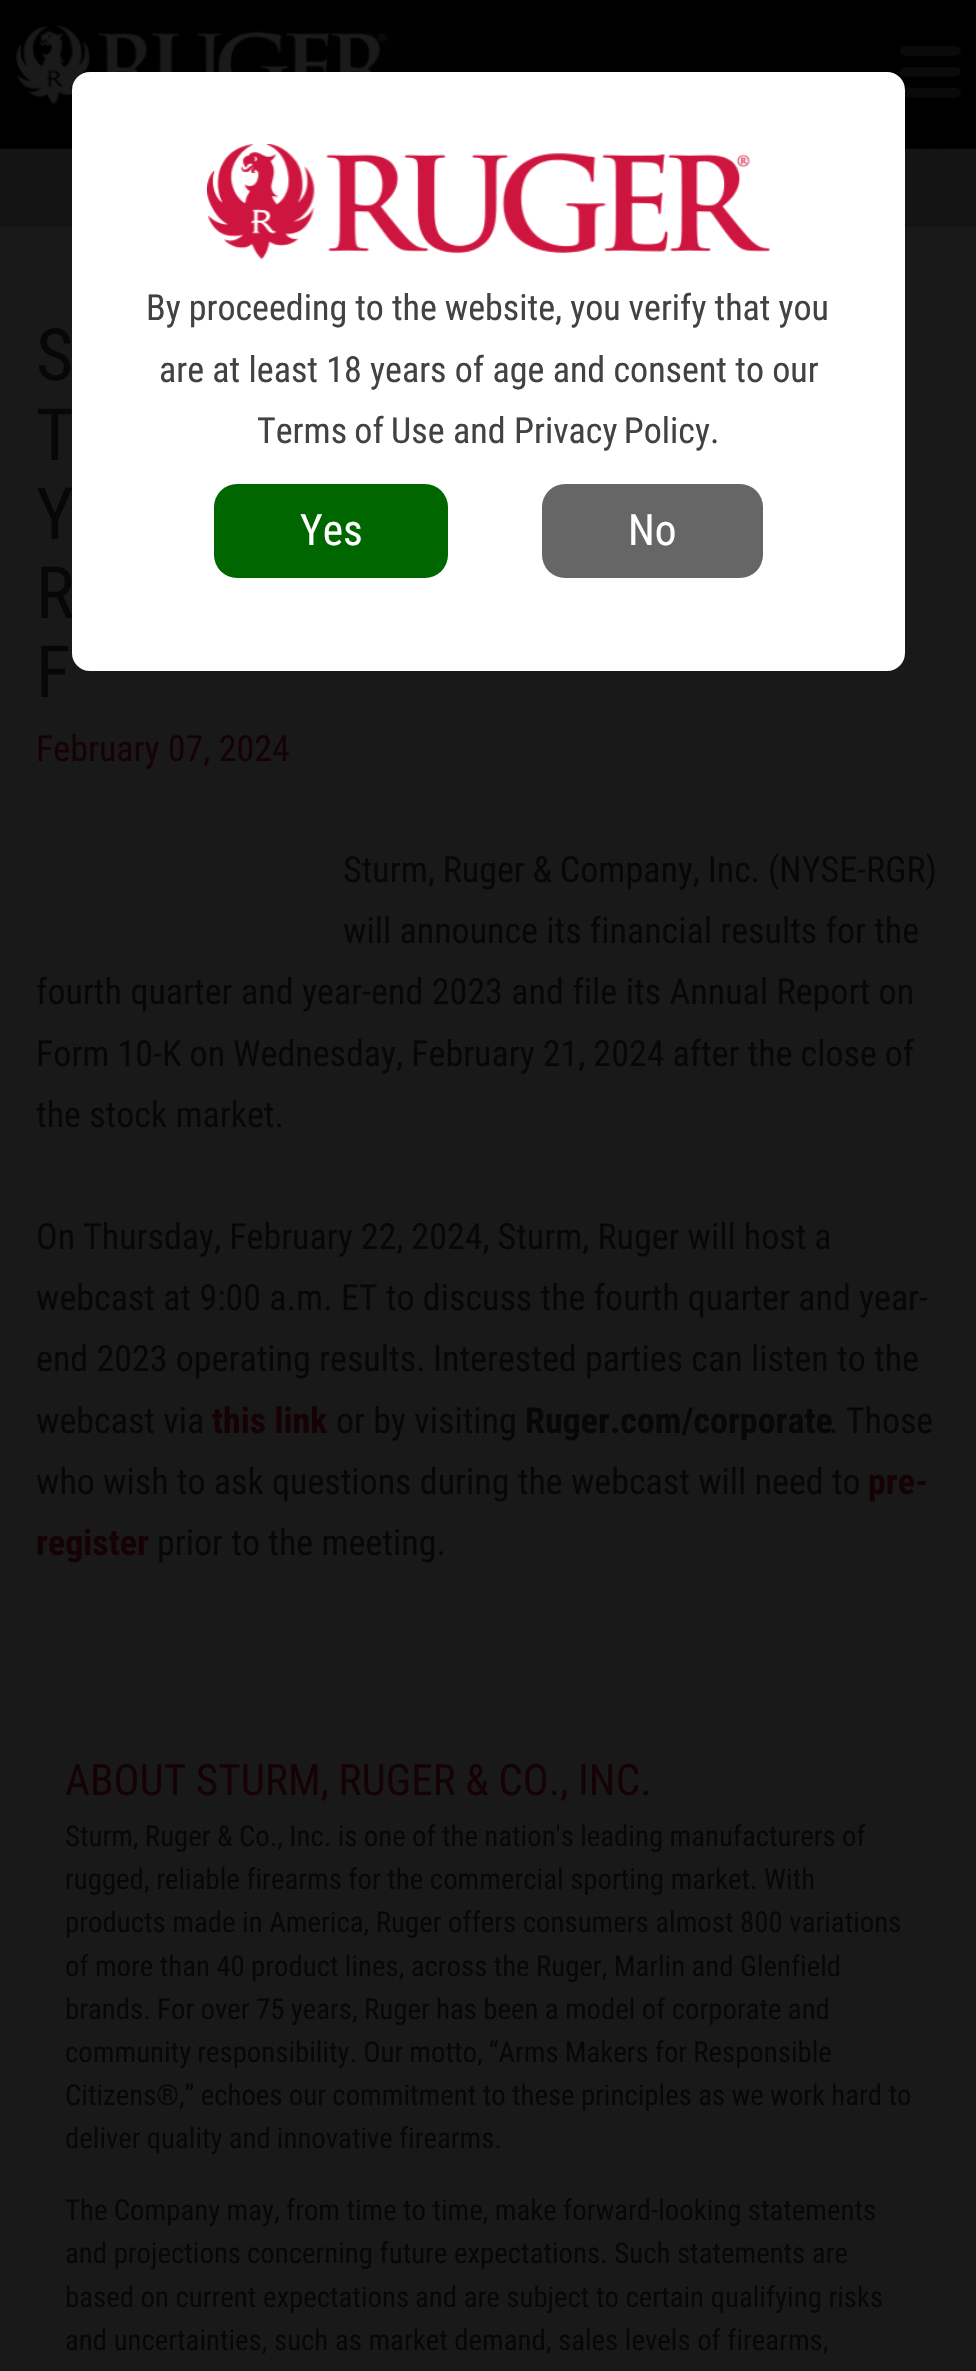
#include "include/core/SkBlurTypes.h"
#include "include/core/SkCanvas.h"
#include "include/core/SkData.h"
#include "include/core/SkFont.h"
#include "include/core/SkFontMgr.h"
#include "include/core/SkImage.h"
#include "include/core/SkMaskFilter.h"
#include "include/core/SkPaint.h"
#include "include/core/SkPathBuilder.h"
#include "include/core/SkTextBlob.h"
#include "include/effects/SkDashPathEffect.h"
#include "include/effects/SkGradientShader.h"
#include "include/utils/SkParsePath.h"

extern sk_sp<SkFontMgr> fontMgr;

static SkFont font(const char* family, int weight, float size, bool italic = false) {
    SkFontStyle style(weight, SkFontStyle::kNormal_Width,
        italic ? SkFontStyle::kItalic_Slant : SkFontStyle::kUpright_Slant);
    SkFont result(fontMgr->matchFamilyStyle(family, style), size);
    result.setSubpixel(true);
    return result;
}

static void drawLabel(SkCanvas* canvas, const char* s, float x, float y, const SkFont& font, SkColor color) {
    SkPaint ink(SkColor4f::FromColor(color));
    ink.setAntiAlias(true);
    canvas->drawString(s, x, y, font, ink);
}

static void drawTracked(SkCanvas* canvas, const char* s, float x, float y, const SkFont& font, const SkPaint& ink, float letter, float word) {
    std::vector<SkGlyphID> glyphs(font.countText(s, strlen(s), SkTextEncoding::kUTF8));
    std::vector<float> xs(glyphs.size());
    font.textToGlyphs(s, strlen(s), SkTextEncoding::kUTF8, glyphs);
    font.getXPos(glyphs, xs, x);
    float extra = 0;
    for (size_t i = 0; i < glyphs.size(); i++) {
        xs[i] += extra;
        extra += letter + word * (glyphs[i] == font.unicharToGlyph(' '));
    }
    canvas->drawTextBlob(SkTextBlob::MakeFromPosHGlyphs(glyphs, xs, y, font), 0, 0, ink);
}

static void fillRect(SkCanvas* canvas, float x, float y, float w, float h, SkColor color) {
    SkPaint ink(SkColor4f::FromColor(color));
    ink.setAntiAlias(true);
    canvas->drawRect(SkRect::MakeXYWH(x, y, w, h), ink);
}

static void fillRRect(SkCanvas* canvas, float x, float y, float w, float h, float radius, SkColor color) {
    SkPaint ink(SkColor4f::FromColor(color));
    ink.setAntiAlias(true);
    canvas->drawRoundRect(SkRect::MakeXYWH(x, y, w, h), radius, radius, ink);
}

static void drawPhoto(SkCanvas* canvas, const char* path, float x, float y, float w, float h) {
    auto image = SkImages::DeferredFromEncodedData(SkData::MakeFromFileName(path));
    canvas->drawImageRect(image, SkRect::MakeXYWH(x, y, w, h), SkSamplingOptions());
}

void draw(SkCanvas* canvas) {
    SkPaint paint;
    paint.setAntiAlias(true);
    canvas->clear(0xFF191919);
    fillRect(canvas, 0, 148, 976, 1, 0xFF050404);
    drawPhoto(canvas, "assets/img1.png", 0, 0, 976, 149);
    drawPhoto(canvas, "assets/img2.png", 15, 25, 373, 80);
    drawPhoto(canvas, "assets/img3.png", 900, 46, 61, 52);
    fillRect(canvas, 0, 149, 976, 78, 0xFF141414);
    SkFont font1 = font("Roboto Condensed", 400, 72);
    paint.setColor(0xFF070707);
    drawTracked(canvas, "Y", 36, 539, font1, paint, 0, -1);
    drawTracked(canvas, "R", 36, 618, font1, paint, 0, -3);
    fillRRect(canvas, 72, 72, 833, 599, 18, 0xFFFFFFFF);
    drawPhoto(canvas, "assets/img4.png", 207, 144, 563, 115);
    SkFont font2 = font("Roboto Condensed", 400, 36);
    paint.setColor(0xFF424242);
    drawTracked(canvas, "By proceeding to the website, you verify that you", 146, 320, font2, paint, 0, -0.25f);
    drawLabel(canvas, "are at least 18 years of age and consent to our", 159, 382, font2, 0xFF424242);
    drawTracked(canvas, "Terms of Use", 257, 443, font2, paint, 0, -1);
    drawLabel(canvas, "and", 453, 443, font2, 0xFF424242);
    drawTracked(canvas, "Privacy Policy", 514, 443, font2, paint, 0, -2);
    drawLabel(canvas, ".", 710, 443, font2, 0xFF424242);
    fillRRect(canvas, 214, 484, 234, 94, 23, 0xFF006600);
    SkFont font3 = font("Roboto Condensed", 400, 43.25f);
    drawLabel(canvas, "Yes", 300, 545, font3, 0xFFFFFFFF);
    fillRRect(canvas, 542, 484, 221, 94, 23, 0xFF666666);
    drawLabel(canvas, "No", 628, 545, font3, 0xFFFFFFFF);
    paint.setColor(0xFF070707);
    drawTracked(canvas, "S", 36, 380, font1, paint, 0, -1);
    drawLabel(canvas, "T", 36, 460, font1, 0xFF070707);
    drawLabel(canvas, "F", 36, 697, font1, 0xFF070707);
    drawLabel(canvas, "February 07, 2024", 36, 761, font2, 0xFF150204);
    drawTracked(canvas, "Sturm, Ruger & Company, Inc. (NYSE-RGR)", 343, 882, font2, paint, 0, -0.5f);
    drawLabel(canvas, "will announce its financial results for the", 343, 943, font2, 0xFF070707);
    drawTracked(canvas, "fourth quarter and year-end 2023 and file its Annual Report on", 36, 1004, font2, paint, 0, 0.25f);
    drawTracked(canvas, "Form 10-K on Wednesday, February 21, 2024 after the close of", 36, 1066, font2, paint, 0, -0.25f);
    drawLabel(canvas, "the stock market.", 36, 1127, font2, 0xFF070707);
    drawTracked(canvas, "On Thursday, February 22, 2024, Sturm, Ruger will host a", 36, 1249, font2, paint, 0, -0.25f);
    drawLabel(canvas, "webcast at 9:00 a.m. ET to discuss the fourth quarter and year-", 36, 1310, font2, 0xFF070707);
    drawLabel(canvas, "end 2023 operating results.", 36, 1371, font2, 0xFF070707);
    drawLabel(canvas, "Interested parties can listen to the", 433, 1371, font2, 0xFF070707);
    drawLabel(canvas, "webcast via", 36, 1433, font2, 0xFF070707);
    SkFont font4 = font("Roboto Condensed", 700, 36);
    drawLabel(canvas, "this link", 212, 1433, font4, 0xFF150204);
    drawLabel(canvas, "or by visiting", 336, 1433, font2, 0xFF070707);
    drawLabel(canvas, "Ruger.com/corporate", 525, 1433, font4, 0xFF070707);
    drawTracked(canvas, ". Those", 829, 1433, font2, paint, 0, -1);
    drawLabel(canvas, "who wish to ask questions during the webcast will need to", 36, 1494, font2, 0xFF070707);
    drawLabel(canvas, "pre-", 868, 1494, font4, 0xFF150204);
    drawLabel(canvas, "register", 36, 1555, font4, 0xFF150204);
    drawLabel(canvas, "prior to the meeting.", 157, 1555, font2, 0xFF070707);
    paint.setColor(0xFF150204);
    drawTracked(canvas, "ABOUT STURM, RUGER & CO., INC.", 65, 1795, font3, paint, 0, -0.5f);
    SkFont font5 = font("Roboto Condensed", 400, 28.8f);
    paint.setColor(0xFF070707);
    drawTracked(canvas, "Sturm, Ruger & Co., Inc. is one of the nation's leading manufacturers of", 65, 1846, font5, paint, 0, -0.25f);
    drawLabel(canvas, "rugged, reliable firearms for the commercial sporting market. With", 65, 1889, font5, 0xFF070707);
    drawLabel(canvas, "products made in America, Ruger offers consumers almost 800 variations", 65, 1932, font5, 0xFF070707);
    drawTracked(canvas, "of more than 40 product lines, across the Ruger, Marlin and Glenfield", 65, 1976, font5, paint, 0, -0.25f);
    drawTracked(canvas, "brands. For over 75 years, Ruger has been a model of corporate and", 65, 2019, font5, paint, 0, -0.25f);
    drawTracked(canvas, "community responsibility. Our motto, “Arms Makers for Responsible", 65, 2062, font5, paint, 0, -0.5f);
    drawTracked(canvas, "Citizens®,” echoes our commitment to these principles as we work hard to", 65, 2105, font5, paint, 0, -0.25f);
    drawTracked(canvas, "deliver quality and innovative firearms.", 65, 2148, font5, paint, 0, -0.5f);
    drawTracked(canvas, "The Company may, from time to time, make forward-looking statements", 65, 2220, font5, paint, 0, -0.25f);
    drawLabel(canvas, "and projections", 65, 2263, font5, 0xFF070707);
    drawLabel(canvas, "concerning future expectations. Such statements are", 247, 2263, font5, 0xFF070707);
    drawLabel(canvas, "based on current expectations", 65, 2307, font5, 0xFF070707);
    drawLabel(canvas, "and are subject to certain qualifying risks", 415, 2307, font5, 0xFF070707);
    drawLabel(canvas, "and uncertainties, such as market demand, sales levels of firearms,", 65, 2350, font5, 0xFF070707);
}
